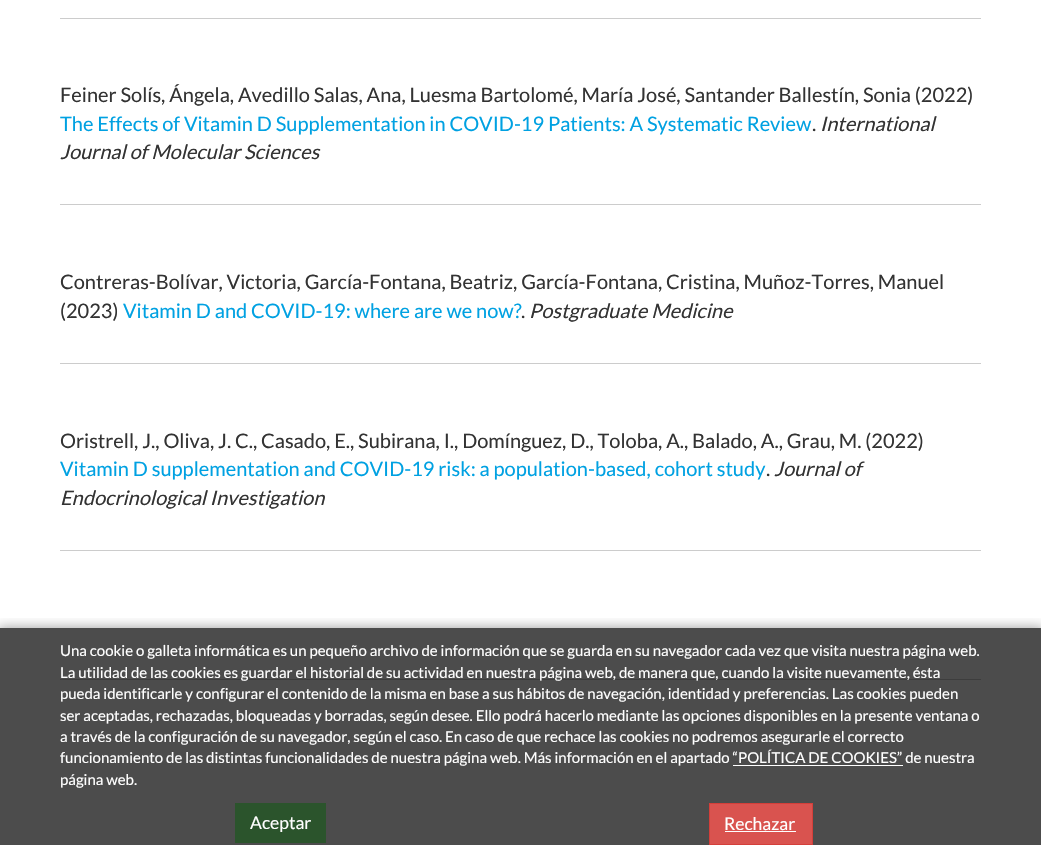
#include "include/core/SkBlurTypes.h"
#include "include/core/SkCanvas.h"
#include "include/core/SkData.h"
#include "include/core/SkFont.h"
#include "include/core/SkFontMgr.h"
#include "include/core/SkImage.h"
#include "include/core/SkMaskFilter.h"
#include "include/core/SkPaint.h"
#include "include/core/SkPathBuilder.h"
#include "include/core/SkTextBlob.h"
#include "include/effects/SkDashPathEffect.h"
#include "include/effects/SkGradientShader.h"
#include "include/utils/SkParsePath.h"

extern sk_sp<SkFontMgr> fontMgr;

static SkFont font(const char* family, int weight, float size, bool italic = false) {
    SkFontStyle style(weight, SkFontStyle::kNormal_Width,
        italic ? SkFontStyle::kItalic_Slant : SkFontStyle::kUpright_Slant);
    SkFont result(fontMgr->matchFamilyStyle(family, style), size);
    result.setSubpixel(true);
    return result;
}

static void drawLabel(SkCanvas* canvas, const char* s, float x, float y, const SkFont& font, SkColor color) {
    SkPaint ink(SkColor4f::FromColor(color));
    ink.setAntiAlias(true);
    canvas->drawString(s, x, y, font, ink);
}

static void fillRect(SkCanvas* canvas, float x, float y, float w, float h, SkColor color) {
    SkPaint ink(SkColor4f::FromColor(color));
    ink.setAntiAlias(true);
    canvas->drawRect(SkRect::MakeXYWH(x, y, w, h), ink);
}

void draw(SkCanvas* canvas) {
    SkPaint paint;
    paint.setAntiAlias(true);
    canvas->clear(0xFFFFFFFF);
    fillRect(canvas, 60, 18, 921, 1, 0xFFCCCCCC);
    fillRect(canvas, 60, 204, 921, 1, 0xFFCCCCCC);
    SkFont font1 = font("Lato", 400, 20);
    drawLabel(canvas, "Feiner Solís, Ángela, Avedillo Salas, Ana, Luesma Bartolomé, María José, Santander Ballestín, Sonia (2022)", 60, 102, font1, 0xFF333333);
    drawLabel(canvas, "The Effects of Vitamin D Supplementation in COVID-19 Patients: A Systematic Review", 60, 131, font1, 0xFF00A1E2);
    drawLabel(canvas, ".", 812, 131, font1, 0xFF333333);
    SkFont font2 = font("Lato", 400, 20, true);
    drawLabel(canvas, "International", 820, 131, font2, 0xFF333333);
    drawLabel(canvas, "Journal of Molecular Sciences", 60, 159, font2, 0xFF333333);
    fillRect(canvas, 60, 363, 921, 1, 0xFFCCCCCC);
    drawLabel(canvas, "Contreras-Bolívar, Victoria, García-Fontana, Beatriz, García-Fontana, Cristina, Muñoz-Torres, Manuel", 60, 289, font1, 0xFF333333);
    drawLabel(canvas, "(2023)", 60, 318, font1, 0xFF333333);
    drawLabel(canvas, "Vitamin D and COVID-19: where are we now?", 123, 318, font1, 0xFF00A1E2);
    drawLabel(canvas, ".", 521, 318, font1, 0xFF333333);
    drawLabel(canvas, "Postgraduate Medicine", 529, 318, font2, 0xFF333333);
    fillRect(canvas, 60, 550, 921, 1, 0xFFCCCCCC);
    drawLabel(canvas, "Oristrell, J., Oliva, J. C., Casado, E., Subirana, I., Domínguez, D., Toloba, A., Balado, A., Grau, M. (2022)", 60, 448, font1, 0xFF333333);
    drawLabel(canvas, "Vitamin D supplementation and COVID-19 risk: a population-based, cohort study", 60, 476, font1, 0xFF00A1E2);
    drawLabel(canvas, ".", 766, 476, font1, 0xFF333333);
    drawLabel(canvas, "Journal of", 774, 476, font2, 0xFF333333);
    drawLabel(canvas, "Endocrinological Investigation", 60, 505, font2, 0xFF333333);
    fillRect(canvas, 60, 679, 921, 1, 0xFFCCCCCC);
    canvas->save();
    canvas->clipRect(SkRect::MakeXYWH(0, 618, 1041, 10));
    paint.setColor(0x66000000);
    paint.setMaskFilter(SkMaskFilter::MakeBlur(kNormal_SkBlurStyle, 6));
    canvas->drawRect(SkRect::MakeXYWH(-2, 628, 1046, 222), paint);
    paint.setMaskFilter(nullptr);
    canvas->restore();
    fillRect(canvas, 0, 628, 1041, 217, 0xB3000000);
    SkFont font3 = font("Lato", 400, 15);
    drawLabel(canvas, "Una cookie o galleta informática es un pequeño archivo de información que se guarda en su navegador cada vez que visita nuestra página web.", 60, 656, font3, 0xFFFFFFFF);
    drawLabel(canvas, "La utilidad de las cookies es guardar el historial de su actividad en nuestra página web, de manera que, cuando la visite nuevamente, ésta", 60, 678, font3, 0xFFFFFFFF);
    drawLabel(canvas, "pueda identificarle y configurar el contenido de la misma en base a sus hábitos de navegación, identidad y preferencias. Las cookies pueden", 60, 699, font3, 0xFFFFFFFF);
    drawLabel(canvas, "ser aceptadas, rechazadas, bloqueadas y borradas, según desee. Ello podrá hacerlo mediante las opciones disponibles en la presente ventana o", 60, 721, font3, 0xFFFFFFFF);
    drawLabel(canvas, "a través de la configuración de su navegador, según el caso. En caso de que rechace las cookies no podremos asegurarle el correcto", 60, 742, font3, 0xFFFFFFFF);
    drawLabel(canvas, "funcionamiento de las distintas funcionalidades de nuestra página web. Más información en el apartado “POLÍTICA DE COOKIES” de nuestra", 60, 763, font3, 0xFFFFFFFF);
    fillRect(canvas, 733, 765, 170, 1, 0xFFFFFFFF);
    drawLabel(canvas, "página web.", 60, 785, font3, 0xFFFFFFFF);
    fillRect(canvas, 235, 803, 91, 40, 0xFF2B542C);
    SkFont font4 = font("Lato", 400, 17.5f);
    drawLabel(canvas, "Aceptar", 250, 829, font4, 0xFFFFFFFF);
    paint.setColor(0xFFD9534F);
    canvas->drawRect(SkRect::MakeXYWH(709.5f, 803.5f, 103, 41), paint);
    paint.setStroke(true);
    paint.setStrokeWidth(1);
    paint.setColor(0xFFD43F3A);
    canvas->drawRect(SkRect::MakeXYWH(709.5f, 803.5f, 103, 41), paint);
    drawLabel(canvas, "Rechazar", 724, 830, font4, 0xFFFFFFFF);
    fillRect(canvas, 725, 831, 71, 1, 0xFFFFFFFF);
}
